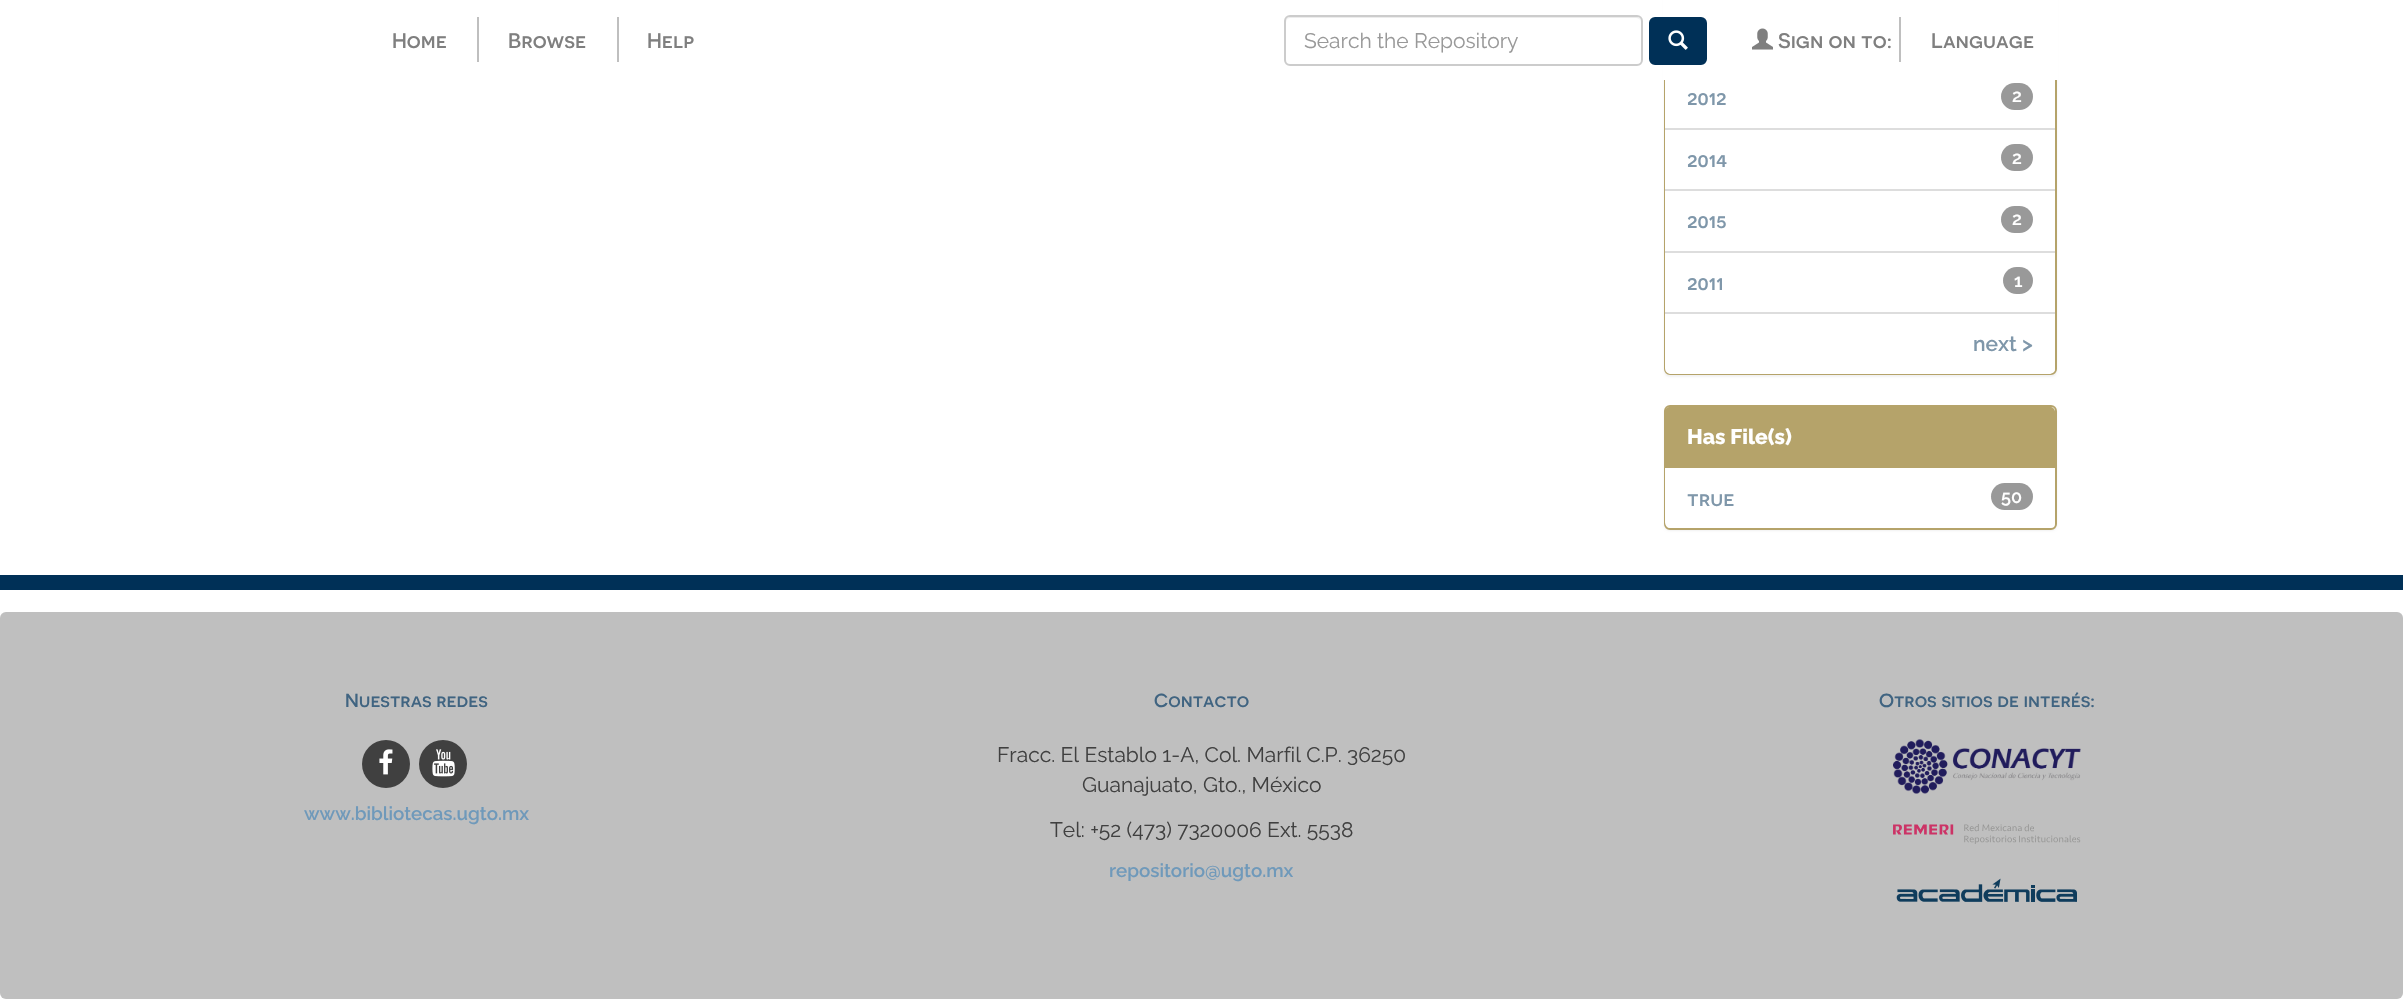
#include "include/core/SkBlurTypes.h"
#include "include/core/SkCanvas.h"
#include "include/core/SkData.h"
#include "include/core/SkFont.h"
#include "include/core/SkFontMgr.h"
#include "include/core/SkImage.h"
#include "include/core/SkMaskFilter.h"
#include "include/core/SkPaint.h"
#include "include/core/SkPathBuilder.h"
#include "include/core/SkTextBlob.h"
#include "include/effects/SkDashPathEffect.h"
#include "include/effects/SkGradientShader.h"
#include "include/utils/SkParsePath.h"

extern sk_sp<SkFontMgr> fontMgr;

static SkFont font(const char* family, int weight, float size, bool italic = false) {
    SkFontStyle style(weight, SkFontStyle::kNormal_Width,
        italic ? SkFontStyle::kItalic_Slant : SkFontStyle::kUpright_Slant);
    SkFont result(fontMgr->matchFamilyStyle(family, style), size);
    result.setSubpixel(true);
    return result;
}

static void drawLabel(SkCanvas* canvas, const char* s, float x, float y, const SkFont& font, SkColor color) {
    SkPaint ink(SkColor4f::FromColor(color));
    ink.setAntiAlias(true);
    canvas->drawString(s, x, y, font, ink);
}

static void fillRect(SkCanvas* canvas, float x, float y, float w, float h, SkColor color) {
    SkPaint ink(SkColor4f::FromColor(color));
    ink.setAntiAlias(true);
    canvas->drawRect(SkRect::MakeXYWH(x, y, w, h), ink);
}

static void fillRRect(SkCanvas* canvas, float x, float y, float w, float h, float radius, SkColor color) {
    SkPaint ink(SkColor4f::FromColor(color));
    ink.setAntiAlias(true);
    canvas->drawRoundRect(SkRect::MakeXYWH(x, y, w, h), radius, radius, ink);
}

static void drawPhoto(SkCanvas* canvas, const char* path, float x, float y, float w, float h) {
    auto image = SkImages::DeferredFromEncodedData(SkData::MakeFromFileName(path));
    canvas->drawImageRect(image, SkRect::MakeXYWH(x, y, w, h), SkSamplingOptions());
}

static SkPath parsePath(const char* data, bool evenOdd = false) {
    SkPath result = *SkParsePath::FromSVGString(data);
    if (evenOdd) result.setFillType(SkPathFillType::kEvenOdd);
    return result;
}

void draw(SkCanvas* canvas) {
    SkPaint paint;
    paint.setAntiAlias(true);
    canvas->clear(0xFFFFFFFF);
    paint.setColor(0x0D000000);
    paint.setMaskFilter(SkMaskFilter::MakeBlur(kNormal_SkBlurStyle, 1));
    canvas->drawRoundRect(SkRect::MakeXYWH(1664, -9, 393, 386), 6, 6, paint);
    paint.setMaskFilter(nullptr);
    paint.setColor(0xFFFFFFFF);
    canvas->drawRoundRect(SkRect::MakeXYWH(1665, -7, 391, 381), 5, 5, paint);
    paint.setStroke(true);
    paint.setStrokeWidth(2);
    paint.setColor(0xFFB5A36A);
    canvas->drawRoundRect(SkRect::MakeXYWH(1665, -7, 391, 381), 5, 5, paint);
    fillRect(canvas, 1663, 0, 395, 80, 0xFFFFFFFF);
    SkFont font1 = font("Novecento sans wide", 600, 21);
    drawLabel(canvas, "Home", 392, 48, font1, 0xFF7F7F7F);
    fillRect(canvas, 477, 17, 2, 45, 0xFFBFBFBF);
    drawLabel(canvas, "Browse", 508, 48, font1, 0xFF7F7F7F);
    fillRect(canvas, 617, 17, 2, 45, 0xFFBFBFBF);
    drawLabel(canvas, "Help", 647, 48, font1, 0xFF7F7F7F);
    paint.setStroke(false);
    paint.setColor(0xFFECECEC);
    canvas->drawPath(parsePath("M1290 18H1636C1639 18 1641 20 1641 22C1641 19 1639 17 1636 17H1291C1288 17 1286 19 1286 22C1286 20 1288 18 1290 18Z"), paint);
    paint.setStroke(true);
    paint.setColor(0xFFCCCCCC);
    canvas->drawRoundRect(SkRect::MakeXYWH(1285, 16, 357, 49), 5, 5, paint);
    SkFont font2 = font("Raleway", 400, 21);
    drawLabel(canvas, "Search the Repository", 1304, 48, font2, 0xFF999999);
    paint.setStroke(false);
    paint.setColor(0xFF003057);
    canvas->drawRoundRect(SkRect::MakeXYWH(1650, 18, 56, 46), 5, 5, paint);
    paint.setStroke(true);
    canvas->drawRoundRect(SkRect::MakeXYWH(1650, 18, 56, 46), 5, 5, paint);
    drawPhoto(canvas, "assets/img1.png", 1668, 30, 20, 20);
    drawPhoto(canvas, "assets/img2.png", 1752, 28, 21, 22);
    drawLabel(canvas, "Sign on to:", 1778, 48, font1, 0xFF7F7F7F);
    fillRect(canvas, 1899, 17, 2, 45, 0xFFBFBFBF);
    drawLabel(canvas, "Language", 1931, 48, font1, 0xFF7F7F7F);
    fillRect(canvas, 1665, 80, 1, 48, 0xFFFFFFFF);
    drawLabel(canvas, "2012", 1687, 105, font1, 0xFF7F97AA);
    fillRRect(canvas, 2001, 83, 32, 27, 13.5f, 0xFF999999);
    SkFont font3 = font("Raleway", 600, 18);
    drawLabel(canvas, "2", 2012, 102, font3, 0xFFFFFFFF);
    fillRect(canvas, 1665, 130, 1, 59, 0xFFFFFFFF);
    fillRect(canvas, 1665, 128, 390, 2, 0xFFDDDDDD);
    fillRect(canvas, 1665, 189, 390, 2, 0xFFDDDDDD);
    drawLabel(canvas, "2014", 1687, 167, font1, 0xFF7F97AA);
    fillRRect(canvas, 2001, 144, 32, 27, 13.5f, 0xFF999999);
    drawLabel(canvas, "2", 2012, 164, font3, 0xFFFFFFFF);
    fillRect(canvas, 1665, 191, 1, 60, 0xFFFFFFFF);
    drawLabel(canvas, "2015", 1687, 228, font1, 0xFF7F97AA);
    fillRRect(canvas, 2001, 206, 32, 27, 13.5f, 0xFF999999);
    drawLabel(canvas, "2", 2012, 225, font3, 0xFFFFFFFF);
    fillRect(canvas, 1665, 253, 1, 59, 0xFFFFFFFF);
    fillRect(canvas, 1665, 251, 390, 2, 0xFFDDDDDD);
    drawLabel(canvas, "2011", 1687, 290, font1, 0xFF7F97AA);
    fillRRect(canvas, 2003, 267, 30, 27, 13.5f, 0xFF999999);
    drawLabel(canvas, "1", 2014, 287, font3, 0xFFFFFFFF);
    paint.setStroke(false);
    paint.setColor(0xFFFFFFFF);
    canvas->drawPath(parsePath("M1665 312H2055V368C2055 371.5 2052.5 374 2049 374H1671C1667.5 374 1665 371.5 1665 368Z"), paint);
    fillRect(canvas, 1665, 312, 390, 2, 0xFFDDDDDD);
    SkFont font4 = font("Raleway", 600, 21);
    drawLabel(canvas, "next >", 1973, 351, font4, 0xFF7F97AA);
    paint.setColor(0x0D000000);
    paint.setMaskFilter(SkMaskFilter::MakeBlur(kNormal_SkBlurStyle, 1));
    canvas->drawRoundRect(SkRect::MakeXYWH(1664, 407, 393, 124), 6, 6, paint);
    paint.setMaskFilter(nullptr);
    paint.setColor(0xFFFFFFFF);
    canvas->drawRoundRect(SkRect::MakeXYWH(1665, 406, 391, 123), 5, 5, paint);
    paint.setStroke(true);
    paint.setColor(0xFFB5A36A);
    canvas->drawRoundRect(SkRect::MakeXYWH(1665, 406, 391, 123), 5, 5, paint);
    paint.setStroke(false);
    canvas->drawPath(parsePath("M1670 407H2050C2053 407 2055 409 2055 412V468H1665V412C1665 409 1667 407 1670 407Z"), paint);
    SkFont font5 = font("Raleway", 800, 21);
    drawLabel(canvas, "Has File(s)", 1687, 444, font5, 0xFFFFFFFF);
    paint.setColor(0xFFFFFFFF);
    canvas->drawPath(parsePath("M1665 468H2055V522C2055 525.5 2052.5 528 2049 528H1671C1667.5 528 1665 525.5 1665 522Z"), paint);
    drawLabel(canvas, "true", 1687, 506, font1, 0xFF7F97AA);
    fillRRect(canvas, 1991, 483, 42, 27, 13.5f, 0xFF999999);
    drawLabel(canvas, "50", 2001, 503, font3, 0xFFFFFFFF);
    fillRect(canvas, 0, 575, 2403, 15, 0xFF003057);
    fillRRect(canvas, 0, 612, 2403, 387, 6, 0xFFBFBFBF);
    SkFont font6 = font("Novecento sans wide", 600, 18.75f);
    drawLabel(canvas, "Nuestras redes", 345, 707, font6, 0xFF406481);
    paint.setColor(0xFF404040);
    canvas->drawCircle(386, 764, 24, paint);
    drawPhoto(canvas, "assets/img3.png", 379, 749, 14, 26);
    canvas->drawCircle(443, 764, 24, paint);
    drawPhoto(canvas, "assets/img4.png", 432, 749, 23, 28);
    SkFont font7 = font("Raleway", 600, 18.75f);
    drawLabel(canvas, "www.bibliotecas.ugto.mx", 304, 820, font7, 0xFF6F99BA);
    drawLabel(canvas, "Contacto", 1154, 707, font6, 0xFF406481);
    drawLabel(canvas, "Fracc. El Establo 1-A, Col. Marfil C.P. 36250", 997, 762, font2, 0xFF404040);
    drawLabel(canvas, "Guanajuato, Gto., México", 1082, 792, font2, 0xFF404040);
    drawLabel(canvas, "Tel: +52 (473) 7320006 Ext. 5538", 1050, 837, font2, 0xFF404040);
    drawLabel(canvas, "repositorio@ugto.mx", 1109, 877, font7, 0xFF6F99BA);
    drawLabel(canvas, "Otros sitios de interés:", 1879, 707, font6, 0xFF406481);
    drawPhoto(canvas, "assets/img5.png", 1893, 739, 188, 55);
    drawPhoto(canvas, "assets/img6.png", 1893, 824, 188, 20);
    drawPhoto(canvas, "assets/img7.png", 1896, 878, 181, 24);
}
